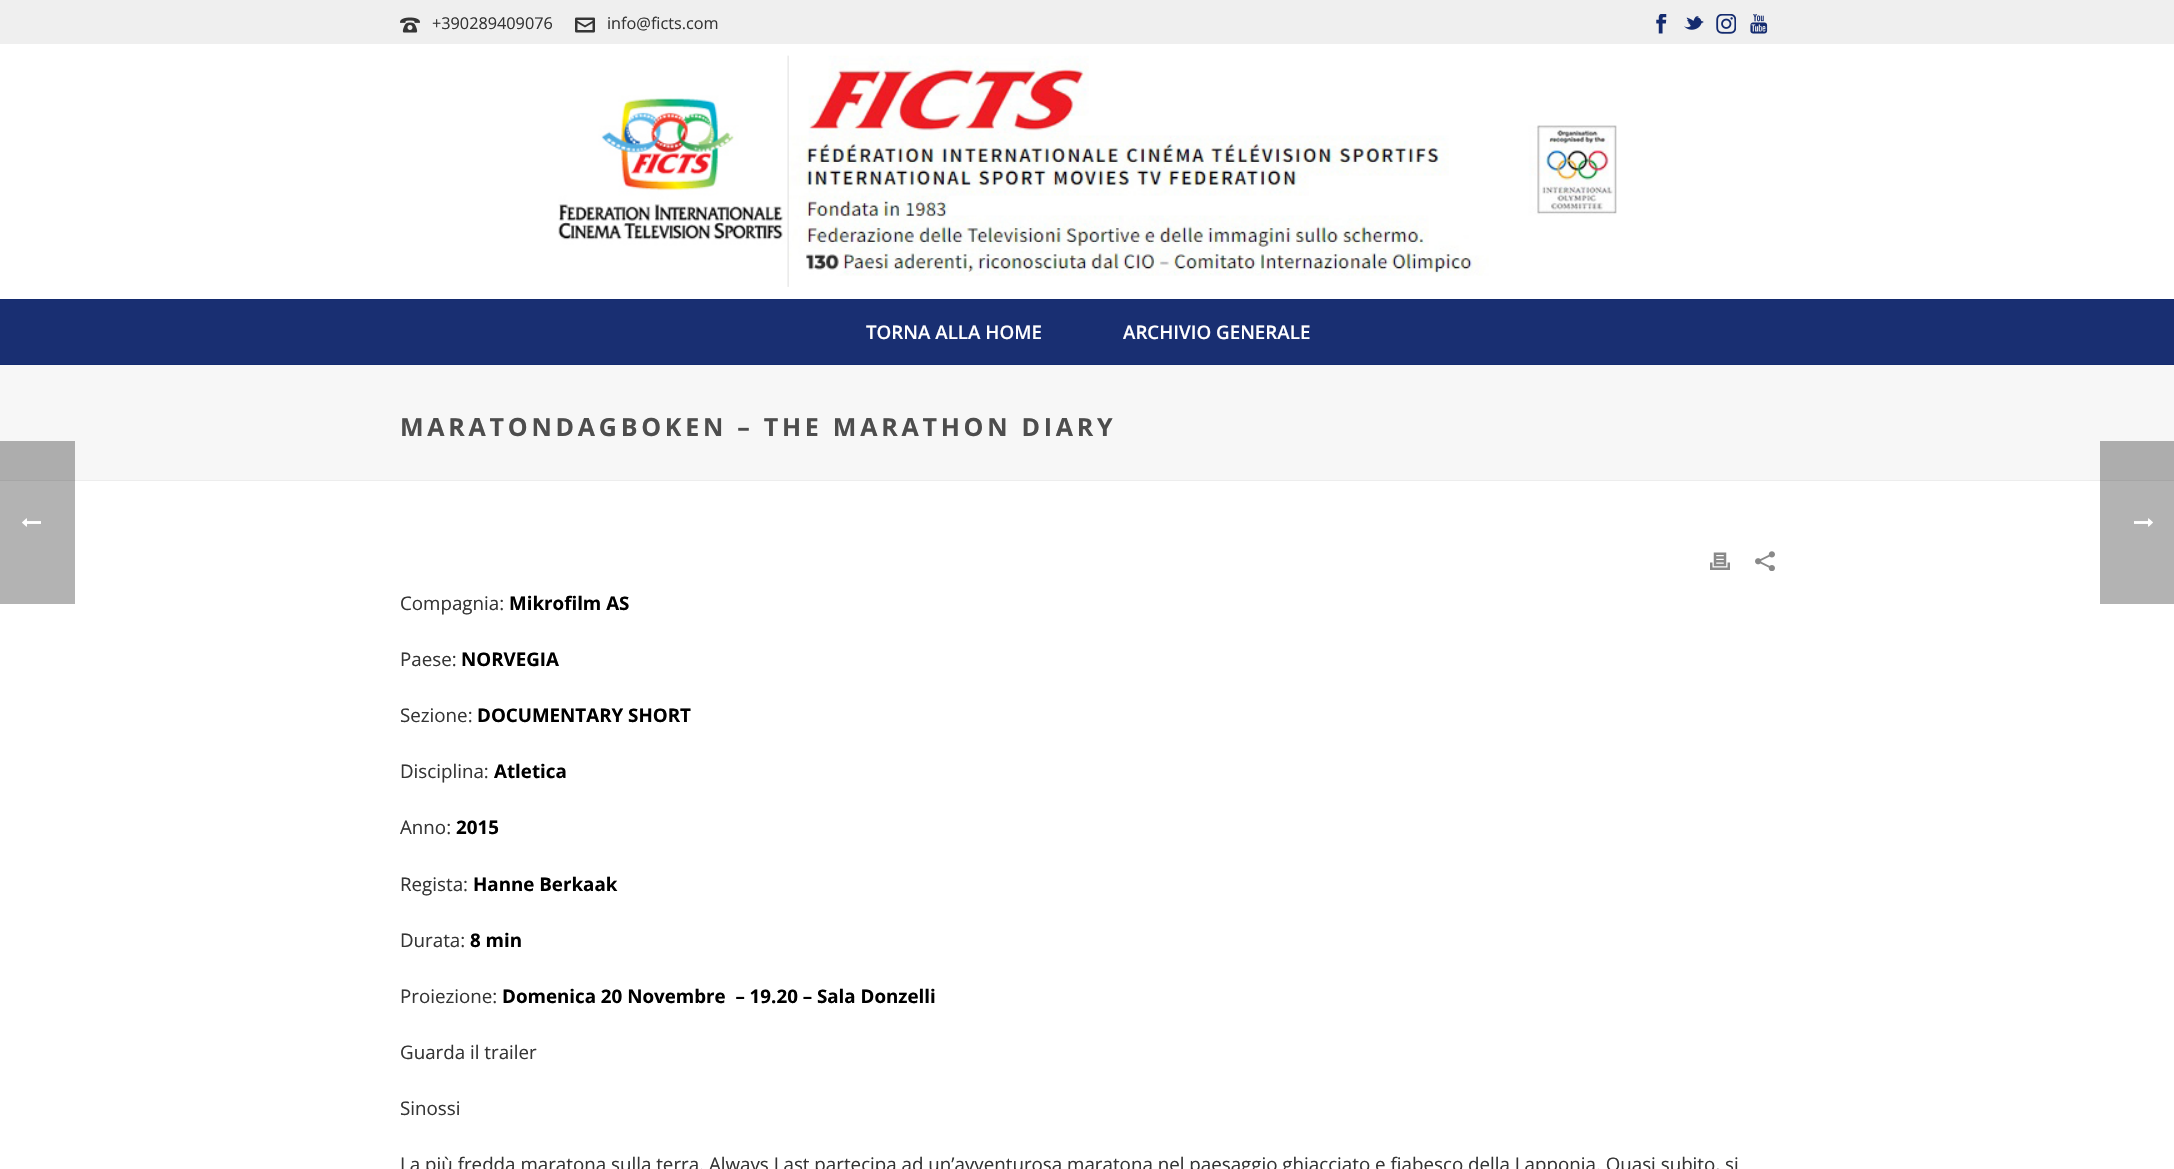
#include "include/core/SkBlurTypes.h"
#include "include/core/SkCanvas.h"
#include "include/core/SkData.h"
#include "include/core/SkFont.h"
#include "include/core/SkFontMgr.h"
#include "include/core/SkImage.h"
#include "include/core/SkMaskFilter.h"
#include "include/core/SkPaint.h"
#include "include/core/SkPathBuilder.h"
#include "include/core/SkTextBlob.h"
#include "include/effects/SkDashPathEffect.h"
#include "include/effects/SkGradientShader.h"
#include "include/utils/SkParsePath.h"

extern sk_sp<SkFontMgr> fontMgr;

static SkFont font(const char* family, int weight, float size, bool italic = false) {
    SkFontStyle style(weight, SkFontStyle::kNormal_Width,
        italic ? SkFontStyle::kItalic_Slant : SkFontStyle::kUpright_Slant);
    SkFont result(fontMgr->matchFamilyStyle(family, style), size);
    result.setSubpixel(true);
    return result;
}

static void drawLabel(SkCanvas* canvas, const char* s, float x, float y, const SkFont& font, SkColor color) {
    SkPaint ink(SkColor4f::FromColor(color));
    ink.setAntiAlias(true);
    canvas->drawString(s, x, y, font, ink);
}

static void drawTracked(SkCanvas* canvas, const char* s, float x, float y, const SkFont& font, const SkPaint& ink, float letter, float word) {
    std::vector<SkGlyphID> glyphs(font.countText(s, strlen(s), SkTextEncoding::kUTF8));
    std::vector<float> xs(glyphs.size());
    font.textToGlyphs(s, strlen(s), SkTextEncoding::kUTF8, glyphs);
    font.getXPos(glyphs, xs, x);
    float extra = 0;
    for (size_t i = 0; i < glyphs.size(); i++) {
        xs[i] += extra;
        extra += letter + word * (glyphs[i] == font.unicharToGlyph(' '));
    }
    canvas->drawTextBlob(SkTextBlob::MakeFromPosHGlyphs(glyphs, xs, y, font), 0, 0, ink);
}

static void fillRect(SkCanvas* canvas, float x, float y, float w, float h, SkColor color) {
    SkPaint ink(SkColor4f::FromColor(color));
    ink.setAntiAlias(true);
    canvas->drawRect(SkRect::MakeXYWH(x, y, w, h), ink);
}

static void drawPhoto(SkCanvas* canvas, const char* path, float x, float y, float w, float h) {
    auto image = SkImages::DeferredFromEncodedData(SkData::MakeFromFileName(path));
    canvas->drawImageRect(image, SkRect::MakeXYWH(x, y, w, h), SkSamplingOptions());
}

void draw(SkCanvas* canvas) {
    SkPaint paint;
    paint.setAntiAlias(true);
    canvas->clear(0xFFFFFFFF);
    fillRect(canvas, 2100, 481, 74, 123, 0xFFB3B3B3);
    fillRect(canvas, 0, 481, 75, 123, 0xFFB3B3B3);
    drawPhoto(canvas, "assets/img1.png", 22, 518, 19, 9);
    fillRect(canvas, 0, 365, 2174, 115, 0xFFF7F7F7);
    fillRect(canvas, 2100, 441, 74, 39, 0xFFADADAD);
    fillRect(canvas, 0, 441, 75, 39, 0xFFADADAD);
    fillRect(canvas, 75, 480, 2025, 1, 0xFFEDEDED);
    fillRect(canvas, 2100, 480, 74, 1, 0xFFA6A6A6);
    fillRect(canvas, 0, 480, 75, 1, 0xFFA6A6A6);
    fillRect(canvas, 0, 0, 2174, 44, 0xFFEFEFEF);
    drawPhoto(canvas, "assets/img2.png", 400, 17, 20, 16);
    SkFont font1 = font("Open Sans", 400, 16.25f);
    drawLabel(canvas, "+390289409076", 432, 29, font1, 0xFF353535);
    drawPhoto(canvas, "assets/img3.png", 575, 17, 20, 16);
    drawLabel(canvas, "info@ficts.com", 607, 29, font1, 0xFF353535);
    drawPhoto(canvas, "assets/img4.png", 1656, 14, 11, 20);
    drawPhoto(canvas, "assets/img5.png", 1684, 16, 20, 14);
    drawPhoto(canvas, "assets/img6.png", 1716, 14, 20, 20);
    drawPhoto(canvas, "assets/img7.png", 1750, 14, 18, 20);
    fillRect(canvas, 0, 364, 2174, 1, 0xFF142B6F);
    drawPhoto(canvas, "assets/img8.png", 558, 55, 1059, 232);
    fillRect(canvas, 0, 300, 2174, 64, 0xFF192F72);
    fillRect(canvas, 0, 299, 2174, 1, 0xFF142B6F);
    SkFont font2 = font("Open Sans", 600, 18.75f);
    drawLabel(canvas, "TORNA ALLA HOME", 866, 339, font2, 0xFFFFFFFF);
    drawLabel(canvas, "ARCHIVIO GENERALE", 1123, 339, font2, 0xFFFFFFFF);
    SkFont font3 = font("Open Sans", 700, 25);
    paint.setColor(0xFF4D4D4D);
    drawTracked(canvas, "MARATONDAGBOKEN – THE MARATHON DIARY", 400, 436, font3, paint, 3.75f, 0);
    drawPhoto(canvas, "assets/img9.png", 1710, 552, 20, 18);
    drawPhoto(canvas, "assets/img10.png", 1755, 551, 20, 20);
    SkFont font4 = font("Open Sans", 400, 18.75f);
    drawLabel(canvas, "Compagnia:", 400, 610, font4, 0xFF353535);
    SkFont font5 = font("Open Sans", 700, 18.75f);
    drawLabel(canvas, "Mikrofilm AS", 509, 610, font5, 0xFF000000);
    drawLabel(canvas, "Paese:", 400, 666, font4, 0xFF353535);
    drawLabel(canvas, "NORVEGIA", 461, 666, font5, 0xFF000000);
    drawLabel(canvas, "Sezione:", 400, 722, font4, 0xFF353535);
    drawLabel(canvas, "DOCUMENTARY SHORT", 477, 722, font5, 0xFF000000);
    drawLabel(canvas, "Disciplina:", 400, 778, font4, 0xFF353535);
    drawLabel(canvas, "Atletica", 494, 778, font5, 0xFF000000);
    drawLabel(canvas, "Anno:", 400, 834, font4, 0xFF353535);
    drawLabel(canvas, "2015", 456, 834, font5, 0xFF000000);
    drawLabel(canvas, "Regista:", 400, 891, font4, 0xFF353535);
    drawLabel(canvas, "Hanne Berkaak", 473, 891, font5, 0xFF000000);
    drawLabel(canvas, "Durata:", 400, 947, font4, 0xFF353535);
    drawLabel(canvas, "8 min", 470, 947, font5, 0xFF000000);
    drawLabel(canvas, "Proiezione:", 400, 1003, font4, 0xFF353535);
    drawLabel(canvas, "Domenica 20 Novembre  – 19.20 – Sala Donzelli", 502, 1003, font5, 0xFF000000);
    drawLabel(canvas, "Guarda il trailer", 400, 1059, font4, 0xFF353535);
    drawLabel(canvas, "Sinossi", 400, 1115, font4, 0xFF353535);
    drawLabel(canvas, "La più fredda maratona sulla terra. Always Last partecipa ad un’avventurosa maratona nel paesaggio ghiacciato e fiabesco della Lapponia. Quasi subito, si", 400, 1171, font4, 0xFF353535);
    drawPhoto(canvas, "assets/img11.png", 2134, 518, 19, 9);
}
